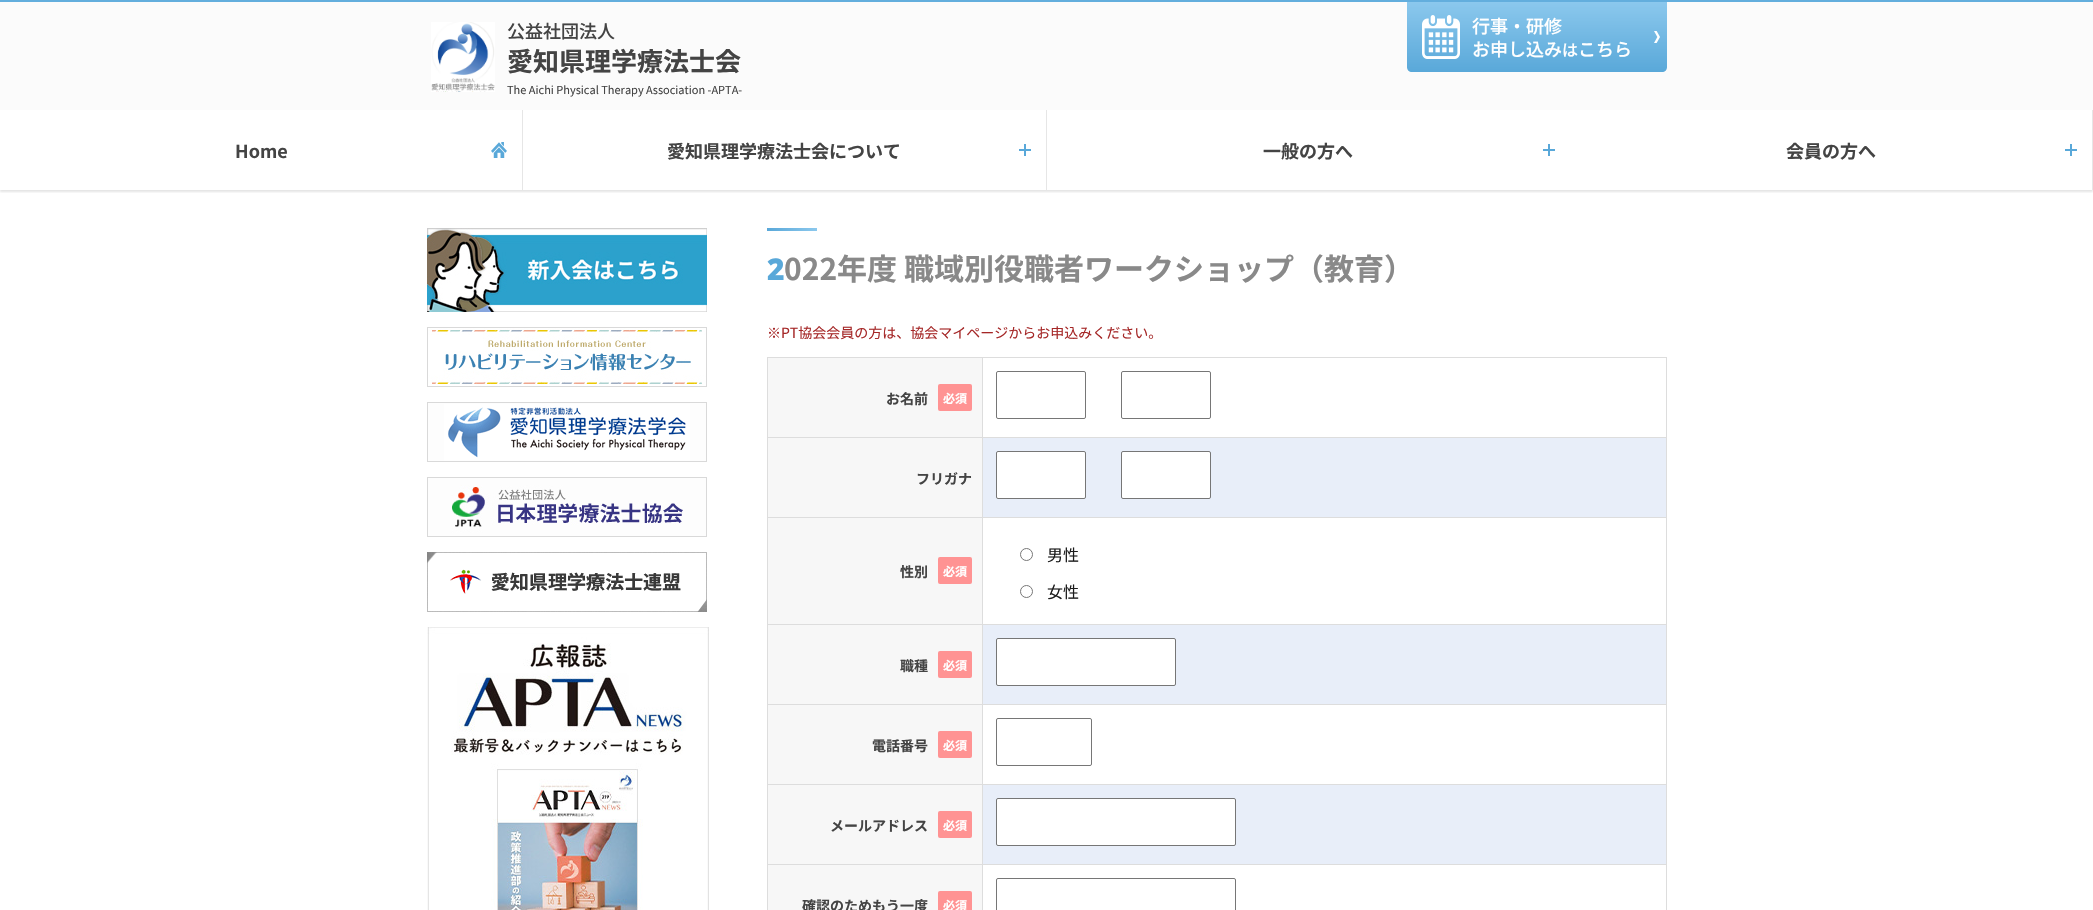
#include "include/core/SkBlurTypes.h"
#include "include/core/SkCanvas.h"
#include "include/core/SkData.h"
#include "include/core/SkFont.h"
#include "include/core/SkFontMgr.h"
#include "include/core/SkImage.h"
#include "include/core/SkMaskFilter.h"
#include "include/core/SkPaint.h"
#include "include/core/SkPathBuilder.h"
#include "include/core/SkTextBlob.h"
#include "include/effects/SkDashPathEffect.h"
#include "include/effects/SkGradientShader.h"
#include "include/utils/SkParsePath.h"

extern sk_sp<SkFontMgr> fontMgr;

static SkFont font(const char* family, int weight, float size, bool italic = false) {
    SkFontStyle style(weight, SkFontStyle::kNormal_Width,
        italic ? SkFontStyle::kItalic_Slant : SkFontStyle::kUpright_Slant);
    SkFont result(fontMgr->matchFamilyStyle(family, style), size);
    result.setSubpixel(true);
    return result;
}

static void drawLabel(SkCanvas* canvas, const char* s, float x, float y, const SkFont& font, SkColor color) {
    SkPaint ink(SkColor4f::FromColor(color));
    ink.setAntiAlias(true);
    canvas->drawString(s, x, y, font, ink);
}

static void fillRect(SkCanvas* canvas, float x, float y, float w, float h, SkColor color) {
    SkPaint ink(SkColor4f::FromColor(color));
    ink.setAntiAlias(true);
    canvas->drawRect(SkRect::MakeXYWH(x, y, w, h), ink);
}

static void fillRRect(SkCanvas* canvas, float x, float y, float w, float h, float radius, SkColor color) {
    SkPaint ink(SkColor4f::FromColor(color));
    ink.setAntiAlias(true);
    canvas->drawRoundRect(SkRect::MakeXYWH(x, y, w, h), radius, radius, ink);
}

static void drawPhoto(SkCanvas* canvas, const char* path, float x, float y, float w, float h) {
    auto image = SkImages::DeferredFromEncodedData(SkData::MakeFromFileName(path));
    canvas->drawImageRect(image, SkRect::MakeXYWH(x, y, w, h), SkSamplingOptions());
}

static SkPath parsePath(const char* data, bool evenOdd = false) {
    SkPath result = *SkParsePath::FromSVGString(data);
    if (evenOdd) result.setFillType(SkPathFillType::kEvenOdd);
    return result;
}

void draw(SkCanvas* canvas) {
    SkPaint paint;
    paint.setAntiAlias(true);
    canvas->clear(0xFFFFFFFF);
    fillRect(canvas, 0, 2, 2093, 108, 0xFFFBFBFB);
    fillRect(canvas, 0, 0, 2093, 2, 0xFF63AEDD);
    drawPhoto(canvas, "assets/img1.png", 431, 22, 64, 70);
    SkFont font1 = font("Noto Sans JP", 500, 18);
    drawLabel(canvas, "公益社団法人", 507, 38, font1, 0xFF444444);
    SkFont font2 = font("Noto Sans JP", 700, 26);
    drawLabel(canvas, "愛知県理学療法士会", 507, 71, font2, 0xFF444444);
    SkFont font3 = font("Noto Sans JP", 400, 11);
    drawLabel(canvas, "The Aichi Physical Therapy Association -APTA-", 507, 94, font3, 0xFF444444);
    {
        const SkColor colors[] = {0xFF8BC8ED, 0xFF59A8D9};
        const float stops[] = {0, 1};
        const SkPoint ends[] = {{1537, 2}, {1537, 72}};
        paint.setShader(SkGradientShader::MakeLinear(ends, colors, stops, 2, SkTileMode::kClamp));
        paint.setAlpha(255);
    }
    canvas->drawPath(parsePath("M1407 2H1667V67C1667 70 1665 72 1662 72H1412C1409 72 1407 70 1407 67Z"), paint);
    drawPhoto(canvas, "assets/img2.png", 1422, 15, 38, 44);
    drawLabel(canvas, "行事・研修", 1472, 33, font1, 0xFFFFFFFF);
    drawPhoto(canvas, "assets/img3.png", 1654, 31, 6, 12);
    drawLabel(canvas, "お申し込み", 1472, 56, font1, 0xFFFFFFFF);
    SkFont font4 = font("Noto Sans JP", 500, 16);
    drawLabel(canvas, "は", 1562, 56, font4, 0xFFFFFFFF);
    drawLabel(canvas, "こちら", 1578, 56, font1, 0xFFFFFFFF);
    canvas->save();
    canvas->clipRect(SkRect::MakeXYWH(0, 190, 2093, 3));
    paint.setShader(nullptr);
    paint.setColor(0x1A000000);
    paint.setMaskFilter(SkMaskFilter::MakeBlur(kNormal_SkBlurStyle, 1));
    canvas->drawRect(SkRect::MakeXYWH(0, 112, 2093, 80), paint);
    paint.setMaskFilter(nullptr);
    canvas->restore();
    fillRect(canvas, 522, 110, 1, 80, 0xFFE6E6E6);
    SkFont font5 = font("Noto Sans JP", 700, 18);
    drawLabel(canvas, "Home", 235, 158, font5, 0xFF444444);
    drawPhoto(canvas, "assets/img4.png", 491, 142, 16, 16);
    fillRect(canvas, 1046, 110, 1, 80, 0xFFE6E6E6);
    drawLabel(canvas, "愛知県理学療法士会について", 667, 158, font5, 0xFF444444);
    drawPhoto(canvas, "assets/img5.png", 1019, 144, 12, 12);
    drawLabel(canvas, "一般の方へ", 1263, 158, font5, 0xFF444444);
    drawPhoto(canvas, "assets/img5.png", 1543, 144, 12, 12);
    fillRect(canvas, 2092, 110, 1, 80, 0xFFE6E6E6);
    drawLabel(canvas, "会員の方へ", 1786, 158, font5, 0xFF444444);
    drawPhoto(canvas, "assets/img5.png", 2065, 144, 12, 12);
    drawPhoto(canvas, "assets/img6.png", 427, 228, 280, 84);
    drawPhoto(canvas, "assets/img7.png", 427, 327, 280, 60);
    drawPhoto(canvas, "assets/img8.png", 427, 402, 280, 60);
    drawPhoto(canvas, "assets/img9.png", 427, 477, 280, 60);
    drawPhoto(canvas, "assets/img10.png", 427, 552, 280, 60);
    drawPhoto(canvas, "assets/img11.png", 427, 627, 282, 283);
    {
        const SkColor colors[] = {0xFF59A8D9, 0xFF8BC8ED};
        const float stops[] = {0, 1};
        const SkPoint ends[] = {{767, 230}, {817, 230}};
        paint.setShader(SkGradientShader::MakeLinear(ends, colors, stops, 2, SkTileMode::kClamp));
        paint.setAlpha(255);
    }
    canvas->drawRect(SkRect::MakeXYWH(767, 228, 50, 3), paint);
    SkFont font6 = font("Noto Sans", 900, 30);
    drawLabel(canvas, "2", 767, 280, font6, 0xFF59A8D9);
    SkFont font7 = font("Noto Sans JP", 700, 30);
    drawLabel(canvas, "022年度 職域別役職者ワークショップ（教育）", 784, 280, font7, 0xFF898989);
    SkFont font8 = font("Noto Sans JP", 400, 14);
    drawLabel(canvas, "※PT協会会員の方は、協会マイページからお申込みください。", 767, 338, font8, 0xFFA52727);
    fillRect(canvas, 767, 357, 900, 1, 0xFFDDDDDD);
    fillRect(canvas, 1666, 357, 1, 553, 0xFFDDDDDD);
    fillRect(canvas, 767, 357, 1, 553, 0xFFDDDDDD);
    fillRect(canvas, 768, 358, 214, 79, 0xFFF7F7F7);
    SkFont font9 = font("Noto Sans JP", 700, 14);
    drawLabel(canvas, "お名前", 886, 404, font9, 0xFF444444);
    fillRRect(canvas, 938, 384, 34, 27, 2, 0xFFFF9393);
    SkFont font10 = font("Noto Sans JP", 700, 12);
    drawLabel(canvas, "必須", 943, 403, font10, 0xFFFFFFFF);
    paint.setStroke(true);
    paint.setStrokeWidth(1);
    paint.setShader(nullptr);
    paint.setColor(0xFF767676);
    canvas->drawRoundRect(SkRect::MakeXYWH(996.5f, 371.5f, 89, 47), 1.5f, 1.5f, paint);
    canvas->drawRoundRect(SkRect::MakeXYWH(1121.5f, 371.5f, 89, 47), 1.5f, 1.5f, paint);
    fillRect(canvas, 983, 438, 683, 79, 0xFFE8EEF9);
    fillRect(canvas, 768, 437, 898, 1, 0xFFDDDDDD);
    fillRect(canvas, 768, 438, 214, 79, 0xFFF7F7F7);
    drawLabel(canvas, "フリガナ", 916, 484, font9, 0xFF444444);
    paint.setStroke(false);
    paint.setColor(0xFFFFFFFF);
    canvas->drawRoundRect(SkRect::MakeXYWH(996.5f, 451.5f, 89, 47), 1.5f, 1.5f, paint);
    paint.setStroke(true);
    paint.setColor(0xFF767676);
    canvas->drawRoundRect(SkRect::MakeXYWH(996.5f, 451.5f, 89, 47), 1.5f, 1.5f, paint);
    paint.setStroke(false);
    paint.setColor(0xFFFFFFFF);
    canvas->drawRoundRect(SkRect::MakeXYWH(1121.5f, 451.5f, 89, 47), 1.5f, 1.5f, paint);
    paint.setStroke(true);
    paint.setColor(0xFF767676);
    canvas->drawRoundRect(SkRect::MakeXYWH(1121.5f, 451.5f, 89, 47), 1.5f, 1.5f, paint);
    fillRect(canvas, 768, 517, 898, 1, 0xFFDDDDDD);
    fillRect(canvas, 768, 518, 214, 106, 0xFFF7F7F7);
    drawLabel(canvas, "性別", 900, 577, font9, 0xFF444444);
    fillRRect(canvas, 938, 557, 34, 27, 2, 0xFFFF9393);
    drawLabel(canvas, "必須", 943, 576, font10, 0xFFFFFFFF);
    canvas->drawCircle(1026.5f, 554.5f, 6, paint);
    SkFont font11 = font("Noto Sans JP", 400, 16);
    drawLabel(canvas, "男性", 1047, 561, font11, 0xFF1B1B1B);
    canvas->drawCircle(1026.5f, 591.5f, 6, paint);
    drawLabel(canvas, "女性", 1047, 598, font11, 0xFF1B1B1B);
    fillRect(canvas, 983, 625, 683, 79, 0xFFE8EEF9);
    fillRect(canvas, 768, 624, 898, 1, 0xFFDDDDDD);
    fillRect(canvas, 768, 625, 214, 79, 0xFFF7F7F7);
    drawLabel(canvas, "職種", 900, 671, font9, 0xFF444444);
    fillRRect(canvas, 938, 651, 34, 27, 2, 0xFFFF9393);
    drawLabel(canvas, "必須", 943, 670, font10, 0xFFFFFFFF);
    paint.setStroke(false);
    paint.setColor(0xFFFFFFFF);
    canvas->drawRoundRect(SkRect::MakeXYWH(996.5f, 638.5f, 179, 47), 1.5f, 1.5f, paint);
    paint.setStroke(true);
    paint.setColor(0xFF767676);
    canvas->drawRoundRect(SkRect::MakeXYWH(996.5f, 638.5f, 179, 47), 1.5f, 1.5f, paint);
    fillRect(canvas, 768, 704, 898, 1, 0xFFDDDDDD);
    fillRect(canvas, 768, 705, 214, 79, 0xFFF7F7F7);
    drawLabel(canvas, "電話番号", 872, 751, font9, 0xFF444444);
    fillRRect(canvas, 938, 731, 34, 27, 2, 0xFFFF9393);
    drawLabel(canvas, "必須", 943, 750, font10, 0xFFFFFFFF);
    canvas->drawRoundRect(SkRect::MakeXYWH(996.5f, 718.5f, 95, 47), 1.5f, 1.5f, paint);
    fillRect(canvas, 983, 785, 683, 79, 0xFFE8EEF9);
    fillRect(canvas, 768, 784, 898, 1, 0xFFDDDDDD);
    fillRect(canvas, 768, 785, 214, 79, 0xFFF7F7F7);
    drawLabel(canvas, "メールアドレス", 830, 831, font9, 0xFF444444);
    fillRRect(canvas, 938, 811, 34, 27, 2, 0xFFFF9393);
    drawLabel(canvas, "必須", 943, 830, font10, 0xFFFFFFFF);
    paint.setStroke(false);
    paint.setColor(0xFFFFFFFF);
    canvas->drawRoundRect(SkRect::MakeXYWH(996.5f, 798.5f, 239, 47), 1.5f, 1.5f, paint);
    paint.setStroke(true);
    paint.setColor(0xFF767676);
    canvas->drawRoundRect(SkRect::MakeXYWH(996.5f, 798.5f, 239, 47), 1.5f, 1.5f, paint);
    fillRect(canvas, 768, 864, 898, 1, 0xFFDDDDDD);
    fillRect(canvas, 768, 865, 214, 45, 0xFFF7F7F7);
    drawLabel(canvas, "確認のためもう一度", 802, 911, font9, 0xFF444444);
    fillRRect(canvas, 938, 891, 34, 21, 2, 0xFFFF9393);
    drawLabel(canvas, "必須", 943, 910, font10, 0xFFFFFFFF);
    fillRect(canvas, 982, 358, 1, 552, 0xFFDDDDDD);
    canvas->drawRoundRect(SkRect::MakeXYWH(996.5f, 878.5f, 239, 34), 1.5f, 1.5f, paint);
}
